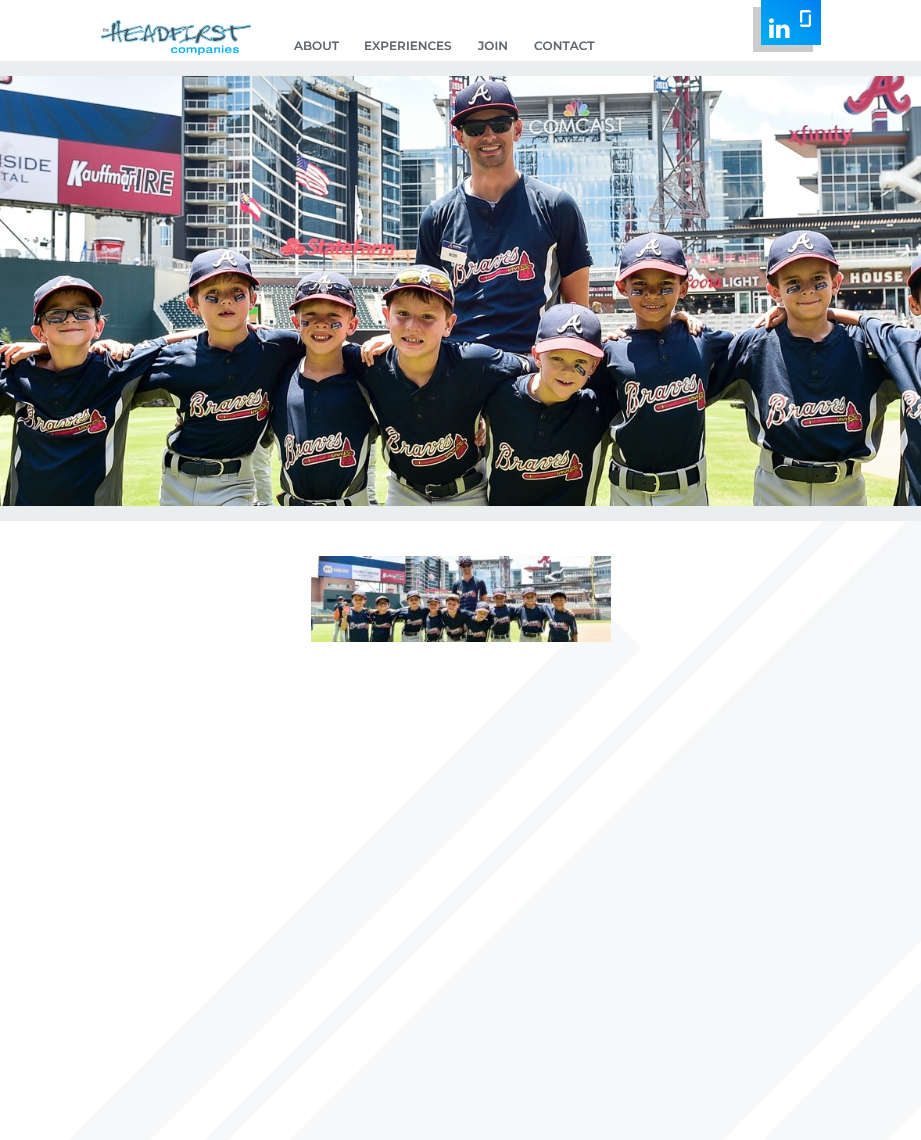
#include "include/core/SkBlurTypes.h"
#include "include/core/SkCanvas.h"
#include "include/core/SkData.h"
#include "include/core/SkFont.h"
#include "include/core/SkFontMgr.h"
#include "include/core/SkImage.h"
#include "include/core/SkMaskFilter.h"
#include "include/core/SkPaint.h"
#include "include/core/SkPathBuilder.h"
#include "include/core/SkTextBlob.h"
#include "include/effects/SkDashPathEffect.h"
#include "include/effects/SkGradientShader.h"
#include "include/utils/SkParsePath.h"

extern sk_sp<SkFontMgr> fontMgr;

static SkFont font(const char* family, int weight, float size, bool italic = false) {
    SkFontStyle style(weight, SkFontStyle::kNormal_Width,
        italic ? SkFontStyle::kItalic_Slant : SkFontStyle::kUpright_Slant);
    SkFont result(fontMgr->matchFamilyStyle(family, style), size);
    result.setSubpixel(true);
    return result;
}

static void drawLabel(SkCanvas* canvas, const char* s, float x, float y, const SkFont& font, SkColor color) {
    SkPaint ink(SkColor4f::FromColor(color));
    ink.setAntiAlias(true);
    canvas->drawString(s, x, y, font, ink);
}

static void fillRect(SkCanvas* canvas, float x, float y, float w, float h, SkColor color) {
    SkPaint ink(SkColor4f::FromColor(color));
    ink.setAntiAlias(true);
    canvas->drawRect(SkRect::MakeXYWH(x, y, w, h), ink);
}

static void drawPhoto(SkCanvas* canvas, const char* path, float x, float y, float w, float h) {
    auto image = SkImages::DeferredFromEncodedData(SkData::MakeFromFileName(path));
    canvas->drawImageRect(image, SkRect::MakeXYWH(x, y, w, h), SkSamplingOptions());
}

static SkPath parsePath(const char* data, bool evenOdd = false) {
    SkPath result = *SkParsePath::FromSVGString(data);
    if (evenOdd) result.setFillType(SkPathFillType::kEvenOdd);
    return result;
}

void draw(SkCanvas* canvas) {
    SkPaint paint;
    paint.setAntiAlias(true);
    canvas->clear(0xFFFFFFFF);
    drawPhoto(canvas, "assets/img1.png", 101, 20, 150, 35);
    SkFont font1 = font("Montserrat", 600, 12);
    drawLabel(canvas, "ABOUT", 294, 50, font1, 0xFF5F666C);
    drawLabel(canvas, "EXPERIENCES", 364, 50, font1, 0xFF5F666C);
    drawLabel(canvas, "JOIN", 478, 50, font1, 0xFF5F666C);
    drawLabel(canvas, "CONTACT", 534, 50, font1, 0xFF5F666C);
    paint.setColor(0xFFCCCCCC);
    canvas->drawPath(parsePath("M753 7V52H813V45H761V7Z"), paint);
    {
        const SkColor colors[] = {0xFF01AEF0, 0xFF00A3F2, 0xFF0098F3, 0xFF008CF3, 0xFF007FF0};
        const float stops[] = {0, 0.25f, 0.5f, 0.75f, 1};
        const SkPoint ends[] = {{769, 51}, {813, -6.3f}};
        paint.setShader(SkGradientShader::MakeLinear(ends, colors, stops, 5, SkTileMode::kClamp));
        paint.setAlpha(255);
    }
    canvas->drawRect(SkRect::MakeXYWH(761, 0, 60, 45), paint);
    drawPhoto(canvas, "assets/img2.png", 769, 18, 21, 21);
    drawPhoto(canvas, "assets/img3.png", 800, 10, 11, 17);
    drawPhoto(canvas, "assets/img4.png", 69, 521, 852, 619);
    drawPhoto(canvas, "assets/img5.png", 0, 76, 921, 430);
    fillRect(canvas, 0, 61, 921, 15, 0xFFEAEEEF);
    fillRect(canvas, 0, 506, 921, 15, 0xFFEAEEEF);
    drawPhoto(canvas, "assets/img6.png", 311, 556, 300, 86);
}
